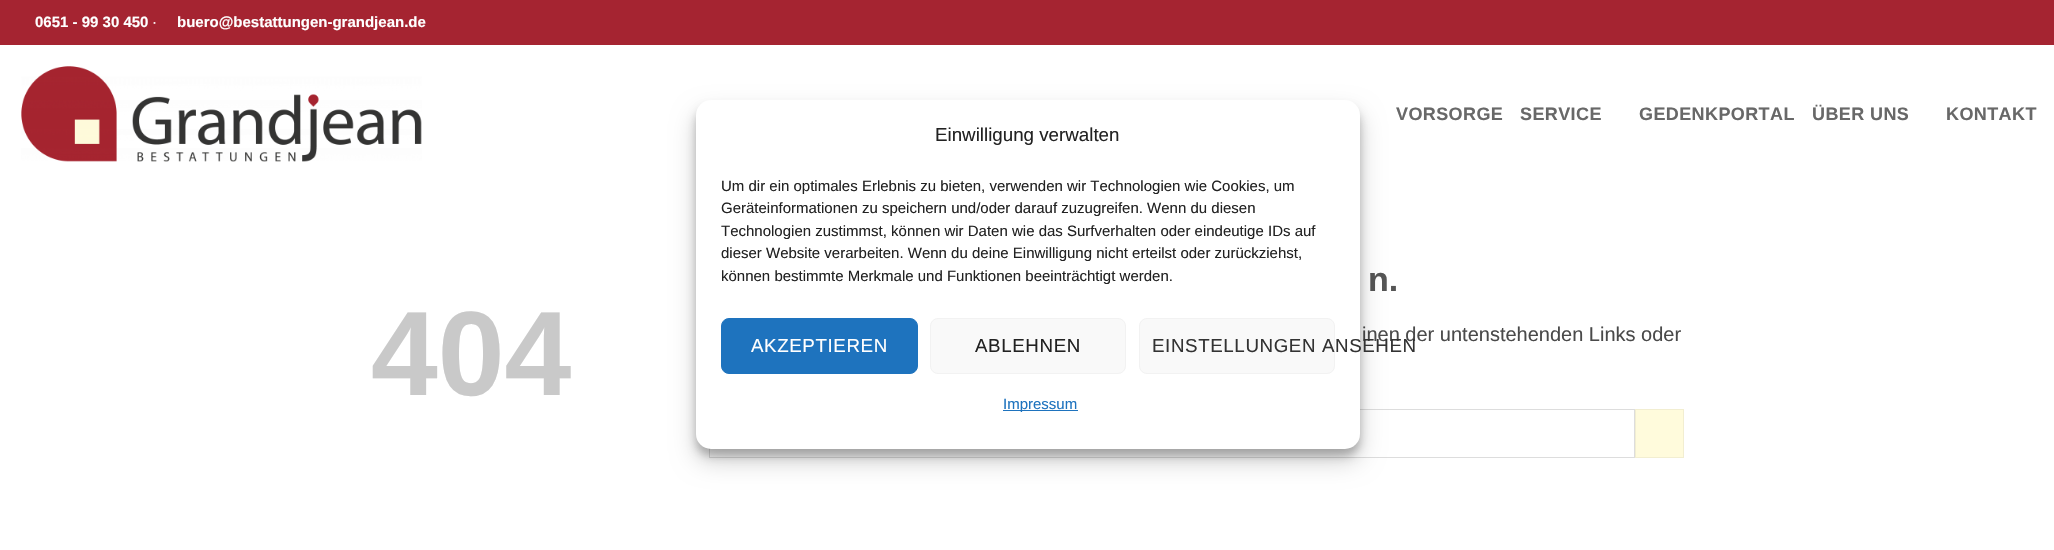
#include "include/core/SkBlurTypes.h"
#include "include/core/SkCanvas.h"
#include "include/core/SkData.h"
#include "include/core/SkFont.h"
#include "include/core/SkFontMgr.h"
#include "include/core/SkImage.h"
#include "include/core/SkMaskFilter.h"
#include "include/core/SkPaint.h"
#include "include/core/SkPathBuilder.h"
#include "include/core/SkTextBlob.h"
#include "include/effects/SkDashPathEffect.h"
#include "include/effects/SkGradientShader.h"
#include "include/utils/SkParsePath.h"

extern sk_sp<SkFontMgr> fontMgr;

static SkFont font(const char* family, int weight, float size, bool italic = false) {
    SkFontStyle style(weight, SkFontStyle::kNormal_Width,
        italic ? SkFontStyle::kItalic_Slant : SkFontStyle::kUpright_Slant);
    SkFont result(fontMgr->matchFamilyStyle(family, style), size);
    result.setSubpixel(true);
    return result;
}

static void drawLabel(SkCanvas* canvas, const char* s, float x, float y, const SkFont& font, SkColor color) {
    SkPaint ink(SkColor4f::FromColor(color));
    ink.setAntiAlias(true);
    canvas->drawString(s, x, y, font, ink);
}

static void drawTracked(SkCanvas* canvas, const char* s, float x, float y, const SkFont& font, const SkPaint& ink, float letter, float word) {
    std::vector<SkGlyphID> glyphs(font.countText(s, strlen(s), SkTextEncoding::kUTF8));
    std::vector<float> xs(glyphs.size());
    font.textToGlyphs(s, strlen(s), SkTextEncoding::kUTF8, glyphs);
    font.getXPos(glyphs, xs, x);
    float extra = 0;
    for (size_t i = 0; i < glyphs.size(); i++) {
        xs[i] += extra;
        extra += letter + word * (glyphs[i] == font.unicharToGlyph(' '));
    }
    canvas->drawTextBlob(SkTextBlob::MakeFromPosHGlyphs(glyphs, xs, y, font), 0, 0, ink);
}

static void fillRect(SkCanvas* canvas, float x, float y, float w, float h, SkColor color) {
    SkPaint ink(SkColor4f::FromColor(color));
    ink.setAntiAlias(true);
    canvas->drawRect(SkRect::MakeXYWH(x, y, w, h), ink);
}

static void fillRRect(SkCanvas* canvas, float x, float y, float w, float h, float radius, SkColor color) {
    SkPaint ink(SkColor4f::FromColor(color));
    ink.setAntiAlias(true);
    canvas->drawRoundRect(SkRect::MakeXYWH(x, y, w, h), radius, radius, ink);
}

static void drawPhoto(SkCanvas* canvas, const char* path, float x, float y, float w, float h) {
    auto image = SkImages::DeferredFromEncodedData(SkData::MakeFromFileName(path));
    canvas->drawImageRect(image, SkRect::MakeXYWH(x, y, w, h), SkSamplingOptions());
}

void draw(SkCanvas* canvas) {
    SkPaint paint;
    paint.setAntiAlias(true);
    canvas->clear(0xFFFFFFFF);
    fillRect(canvas, 0, 0, 2054, 45, 0xFFA52431);
    SkFont font1 = font("Liberation Sans", 700, 15);
    drawLabel(canvas, "0651 - 99 30 450", 35, 27, font1, 0xFFFFFFFF);
    SkFont font2 = font("Liberation Sans", 400, 15);
    drawLabel(canvas, "·", 152, 27, font2, 0xFFFFFFFF);
    drawLabel(canvas, "buero@bestattungen-grandjean.de", 177, 27, font1, 0xFFFFFFFF);
    drawPhoto(canvas, "assets/img1.png", 21, 66, 401, 96);
    SkFont font3 = font("Liberation Sans", 700, 18);
    paint.setColor(0xFF686868);
    drawTracked(canvas, "VORSORGE", 1396, 120, font3, paint, 0.4f, 0);
    drawTracked(canvas, "SERVICE", 1520, 120, font3, paint, 0.4f, 0);
    drawTracked(canvas, "GEDENKPORTAL", 1639, 120, font3, paint, 0.4f, 0);
    drawTracked(canvas, "ÜBER UNS", 1812, 120, font3, paint, 0.4f, 0);
    drawTracked(canvas, "KONTAKT", 1946, 120, font3, paint, 0.4f, 0);
    SkFont font4 = font("Liberation Sans", 700, 120);
    drawLabel(canvas, "404", 371, 395, font4, 0xFFC9C9C9);
    SkFont font5 = font("Liberation Sans", 700, 34);
    drawLabel(canvas, "n.", 1368, 291, font5, 0xFF555555);
    SkFont font6 = font("Liberation Sans", 400, 20);
    drawLabel(canvas, "inen der untenstehenden Links oder", 1362, 341, font6, 0xFF4A4A4A);
    paint.setStroke(true);
    paint.setStrokeWidth(1);
    paint.setColor(0xFFDDDDDD);
    canvas->drawRect(SkRect::MakeXYWH(709.5f, 409.5f, 925, 48), paint);
    paint.setStroke(false);
    paint.setColor(0xFFFFFBDC);
    canvas->drawRect(SkRect::MakeXYWH(1635.5f, 409.5f, 48, 48), paint);
    paint.setStroke(true);
    paint.setColor(0xFFF2EED1);
    canvas->drawRect(SkRect::MakeXYWH(1635.5f, 409.5f, 48, 48), paint);
    paint.setStroke(false);
    paint.setColor(0x3B000000);
    paint.setMaskFilter(SkMaskFilter::MakeBlur(kNormal_SkBlurStyle, 4));
    canvas->drawRoundRect(SkRect::MakeXYWH(696, 108, 664, 348), 15, 15, paint);
    paint.setMaskFilter(nullptr);
    paint.setColor(0x30000000);
    paint.setMaskFilter(SkMaskFilter::MakeBlur(kNormal_SkBlurStyle, 12.5f));
    canvas->drawRoundRect(SkRect::MakeXYWH(696, 113, 664, 348), 15, 15, paint);
    paint.setMaskFilter(nullptr);
    fillRRect(canvas, 696, 100, 664, 349, 15, 0xFFFFFFFF);
    SkFont font7 = font("Liberation Sans", 400, 18.75f);
    drawLabel(canvas, "Einwilligung verwalten", 935, 141, font7, 0xFF222222);
    drawLabel(canvas, "Um dir ein optimales Erlebnis zu bieten, verwenden wir Technologien wie Cookies, um", 721, 191, font2, 0xFF222222);
    drawLabel(canvas, "Geräteinformationen zu speichern und/oder darauf zuzugreifen. Wenn du diesen", 721, 213, font2, 0xFF222222);
    drawLabel(canvas, "Technologien zustimmst, können wir Daten wie das Surfverhalten oder eindeutige IDs auf", 721, 236, font2, 0xFF222222);
    drawLabel(canvas, "dieser Website verarbeiten. Wenn du deine Einwilligung nicht erteilst oder zurückziehst,", 721, 258, font2, 0xFF222222);
    drawLabel(canvas, "können bestimmte Merkmale und Funktionen beeinträchtigt werden.", 721, 281, font2, 0xFF222222);
    paint.setColor(0xFF1E73BE);
    canvas->drawRoundRect(SkRect::MakeXYWH(721.5f, 318.5f, 196, 55), 7.5f, 7.5f, paint);
    paint.setStroke(true);
    canvas->drawRoundRect(SkRect::MakeXYWH(721.5f, 318.5f, 196, 55), 7.5f, 7.5f, paint);
    paint.setStroke(false);
    paint.setColor(0xFFFFFFFF);
    drawTracked(canvas, "AKZEPTIEREN", 751, 352, font7, paint, 0.6f, 0);
    paint.setColor(0xFFF9F9F9);
    canvas->drawRoundRect(SkRect::MakeXYWH(930.5f, 318.5f, 195, 55), 7.5f, 7.5f, paint);
    paint.setStroke(true);
    paint.setColor(0xFFF2F2F2);
    canvas->drawRoundRect(SkRect::MakeXYWH(930.5f, 318.5f, 195, 55), 7.5f, 7.5f, paint);
    paint.setStroke(false);
    paint.setColor(0xFF222222);
    drawTracked(canvas, "ABLEHNEN", 975, 352, font7, paint, 0.6f, 0);
    paint.setColor(0xFFF9F9F9);
    canvas->drawRoundRect(SkRect::MakeXYWH(1139.5f, 318.5f, 195, 55), 7.5f, 7.5f, paint);
    paint.setStroke(true);
    paint.setColor(0xFFF2F2F2);
    canvas->drawRoundRect(SkRect::MakeXYWH(1139.5f, 318.5f, 195, 55), 7.5f, 7.5f, paint);
    paint.setStroke(false);
    paint.setColor(0xFF333333);
    drawTracked(canvas, "EINSTELLUNGEN ANSEHEN", 1152, 352, font7, paint, 0.6f, 0);
    fillRect(canvas, 1003, 410, 75, 1, 0xFF1E73BE);
    drawLabel(canvas, "Impressum", 1003, 409, font2, 0xFF1E73BE);
}
